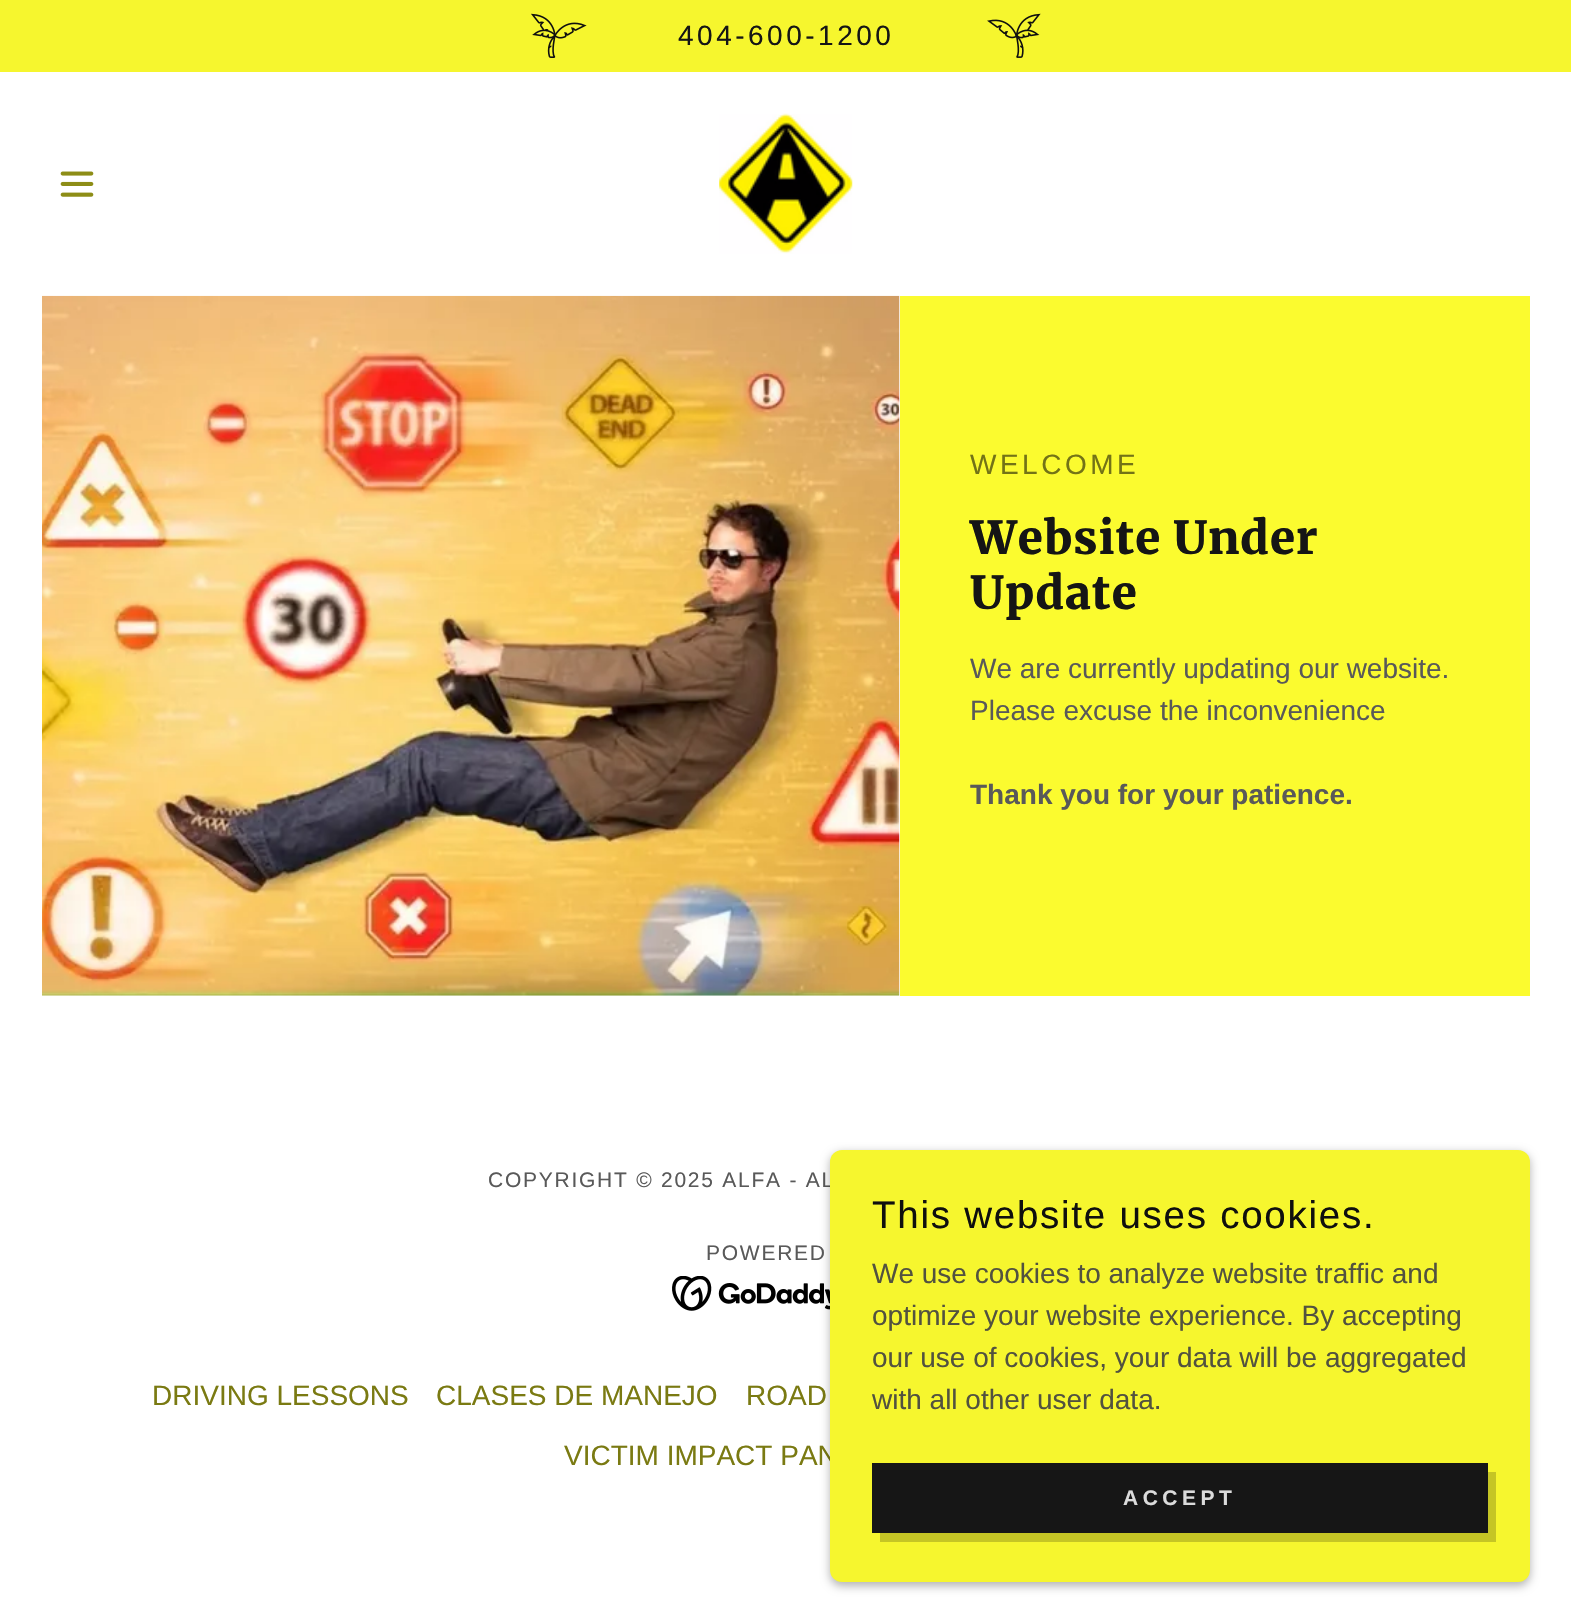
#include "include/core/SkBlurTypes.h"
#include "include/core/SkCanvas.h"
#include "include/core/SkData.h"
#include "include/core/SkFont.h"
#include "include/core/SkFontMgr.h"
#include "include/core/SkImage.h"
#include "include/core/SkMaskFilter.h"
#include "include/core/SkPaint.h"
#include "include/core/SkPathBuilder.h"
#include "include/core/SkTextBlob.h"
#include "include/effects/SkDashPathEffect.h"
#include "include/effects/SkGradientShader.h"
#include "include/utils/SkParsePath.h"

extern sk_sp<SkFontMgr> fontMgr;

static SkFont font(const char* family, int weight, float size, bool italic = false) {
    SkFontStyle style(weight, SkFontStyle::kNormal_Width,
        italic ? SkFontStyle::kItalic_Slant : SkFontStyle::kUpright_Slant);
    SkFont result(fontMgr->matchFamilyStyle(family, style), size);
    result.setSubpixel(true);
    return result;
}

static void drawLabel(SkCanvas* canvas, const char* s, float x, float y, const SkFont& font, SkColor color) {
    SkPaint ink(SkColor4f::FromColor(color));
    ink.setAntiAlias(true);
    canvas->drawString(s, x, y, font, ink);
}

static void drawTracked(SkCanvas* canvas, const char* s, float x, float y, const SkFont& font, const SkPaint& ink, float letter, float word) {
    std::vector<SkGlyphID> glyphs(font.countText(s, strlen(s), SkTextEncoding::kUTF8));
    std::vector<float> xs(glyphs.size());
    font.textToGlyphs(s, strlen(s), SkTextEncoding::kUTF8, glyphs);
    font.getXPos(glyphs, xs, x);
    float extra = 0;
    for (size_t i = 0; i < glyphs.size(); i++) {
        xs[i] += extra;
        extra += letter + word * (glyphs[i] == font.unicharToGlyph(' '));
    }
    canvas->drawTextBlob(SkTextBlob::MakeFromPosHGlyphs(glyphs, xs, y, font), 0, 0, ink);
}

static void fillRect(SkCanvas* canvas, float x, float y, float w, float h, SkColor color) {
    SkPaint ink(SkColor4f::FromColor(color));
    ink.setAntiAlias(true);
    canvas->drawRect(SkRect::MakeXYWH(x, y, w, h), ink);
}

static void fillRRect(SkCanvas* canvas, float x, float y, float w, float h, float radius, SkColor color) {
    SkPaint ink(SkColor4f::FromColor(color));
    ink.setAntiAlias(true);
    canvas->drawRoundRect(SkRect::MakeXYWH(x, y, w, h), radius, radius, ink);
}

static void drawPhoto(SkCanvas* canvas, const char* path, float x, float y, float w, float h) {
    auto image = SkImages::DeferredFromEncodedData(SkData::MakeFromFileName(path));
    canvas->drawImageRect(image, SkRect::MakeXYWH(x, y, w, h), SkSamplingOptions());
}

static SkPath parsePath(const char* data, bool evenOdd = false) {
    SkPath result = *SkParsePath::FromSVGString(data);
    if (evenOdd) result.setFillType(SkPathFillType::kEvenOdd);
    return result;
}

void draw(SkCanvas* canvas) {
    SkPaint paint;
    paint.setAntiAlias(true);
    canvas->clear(0xFFFFFFFF);
    fillRect(canvas, 0, 0, 1571, 72, 0xFFF6F62E);
    drawPhoto(canvas, "assets/img1.png", 531, 13, 56, 45);
    SkFont font1 = font("Liberation Sans", 400, 28);
    paint.setColor(0xFF151515);
    drawTracked(canvas, "404-600-1200", 678, 45, font1, paint, 3.5f, 0);
    drawPhoto(canvas, "assets/img2.png", 987, 13, 54, 45);
    drawPhoto(canvas, "assets/img3.png", 60, 171, 34, 26);
    drawPhoto(canvas, "assets/img4.png", 719, 113, 134, 141);
    drawPhoto(canvas, "assets/img5.png", 42, 295, 858, 701);
    fillRect(canvas, 900, 296, 630, 700, 0xFFFBFB2F);
    paint.setColor(0xFF737316);
    drawTracked(canvas, "WELCOME", 970, 474, font1, paint, 3.5f, 0);
    SkFont font2 = font("Merriweather", 300, 45.5f);
    paint.setColor(0xFF151515);
    drawTracked(canvas, "Website Under", 970, 554, font2, paint, 1, 0);
    drawTracked(canvas, "Update", 970, 609, font2, paint, 1, 0);
    drawLabel(canvas, "We are currently updating our website.", 970, 678, font1, 0xFF595959);
    drawLabel(canvas, "Please excuse the inconvenience", 970, 720, font1, 0xFF595959);
    SkFont font3 = font("Liberation Sans", 700, 28);
    drawLabel(canvas, "Thank you for your patience.", 970, 804, font3, 0xFF595959);
    SkFont font4 = font("Liberation Sans", 400, 21);
    paint.setColor(0xFF595959);
    drawTracked(canvas, "COPYRIGHT © 2025 ALFA - AL", 488, 1187, font4, paint, 1.75f, 0);
    drawTracked(canvas, "POWERED", 706, 1260, font4, paint, 1.75f, 0);
    drawPhoto(canvas, "assets/img6.png", 672, 1276, 158, 35);
    drawLabel(canvas, "DRIVING LESSONS", 152, 1405, font1, 0xFF7A7A12);
    drawLabel(canvas, "CLASES DE MANEJO", 436, 1405, font1, 0xFF7A7A12);
    drawLabel(canvas, "ROAD", 746, 1405, font1, 0xFF7A7A12);
    drawLabel(canvas, "VICTIM IMPACT PAN", 564, 1465, font1, 0xFF7A7A12);
    paint.setColor(0x4D000000);
    paint.setMaskFilter(SkMaskFilter::MakeBlur(kNormal_SkBlurStyle, 5));
    canvas->drawRoundRect(SkRect::MakeXYWH(830, 1153, 700, 433), 12, 12, paint);
    paint.setMaskFilter(nullptr);
    fillRRect(canvas, 830, 1150, 700, 432, 12, 0xFFF6F62E);
    SkFont font5 = font("Liberation Sans", 400, 38.5f);
    paint.setColor(0xFF0F0F0E);
    drawTracked(canvas, "This website uses cookies.", 872, 1228, font5, paint, 1.75f, 0);
    drawLabel(canvas, "We use cookies to analyze website traffic and", 872, 1283, font1, 0xFF52523F);
    drawLabel(canvas, "optimize your website experience. By accepting", 872, 1325, font1, 0xFF52523F);
    drawLabel(canvas, "our use of cookies, your data will be aggregated", 872, 1367, font1, 0xFF52523F);
    drawLabel(canvas, "with all other user data.", 872, 1409, font1, 0xFF52523F);
    fillRect(canvas, 872, 1463, 616, 70, 0xFF161616);
    paint.setColor(0xFFC5C525);
    canvas->drawPath(parsePath("M880 1533V1542H1496V1472H1488V1533Z"), paint);
    SkFont font6 = font("Liberation Sans", 700, 21);
    paint.setColor(0xFFDBDBDB);
    drawTracked(canvas, "ACCEPT", 1123, 1505, font6, paint, 4.5f, 0);
}
